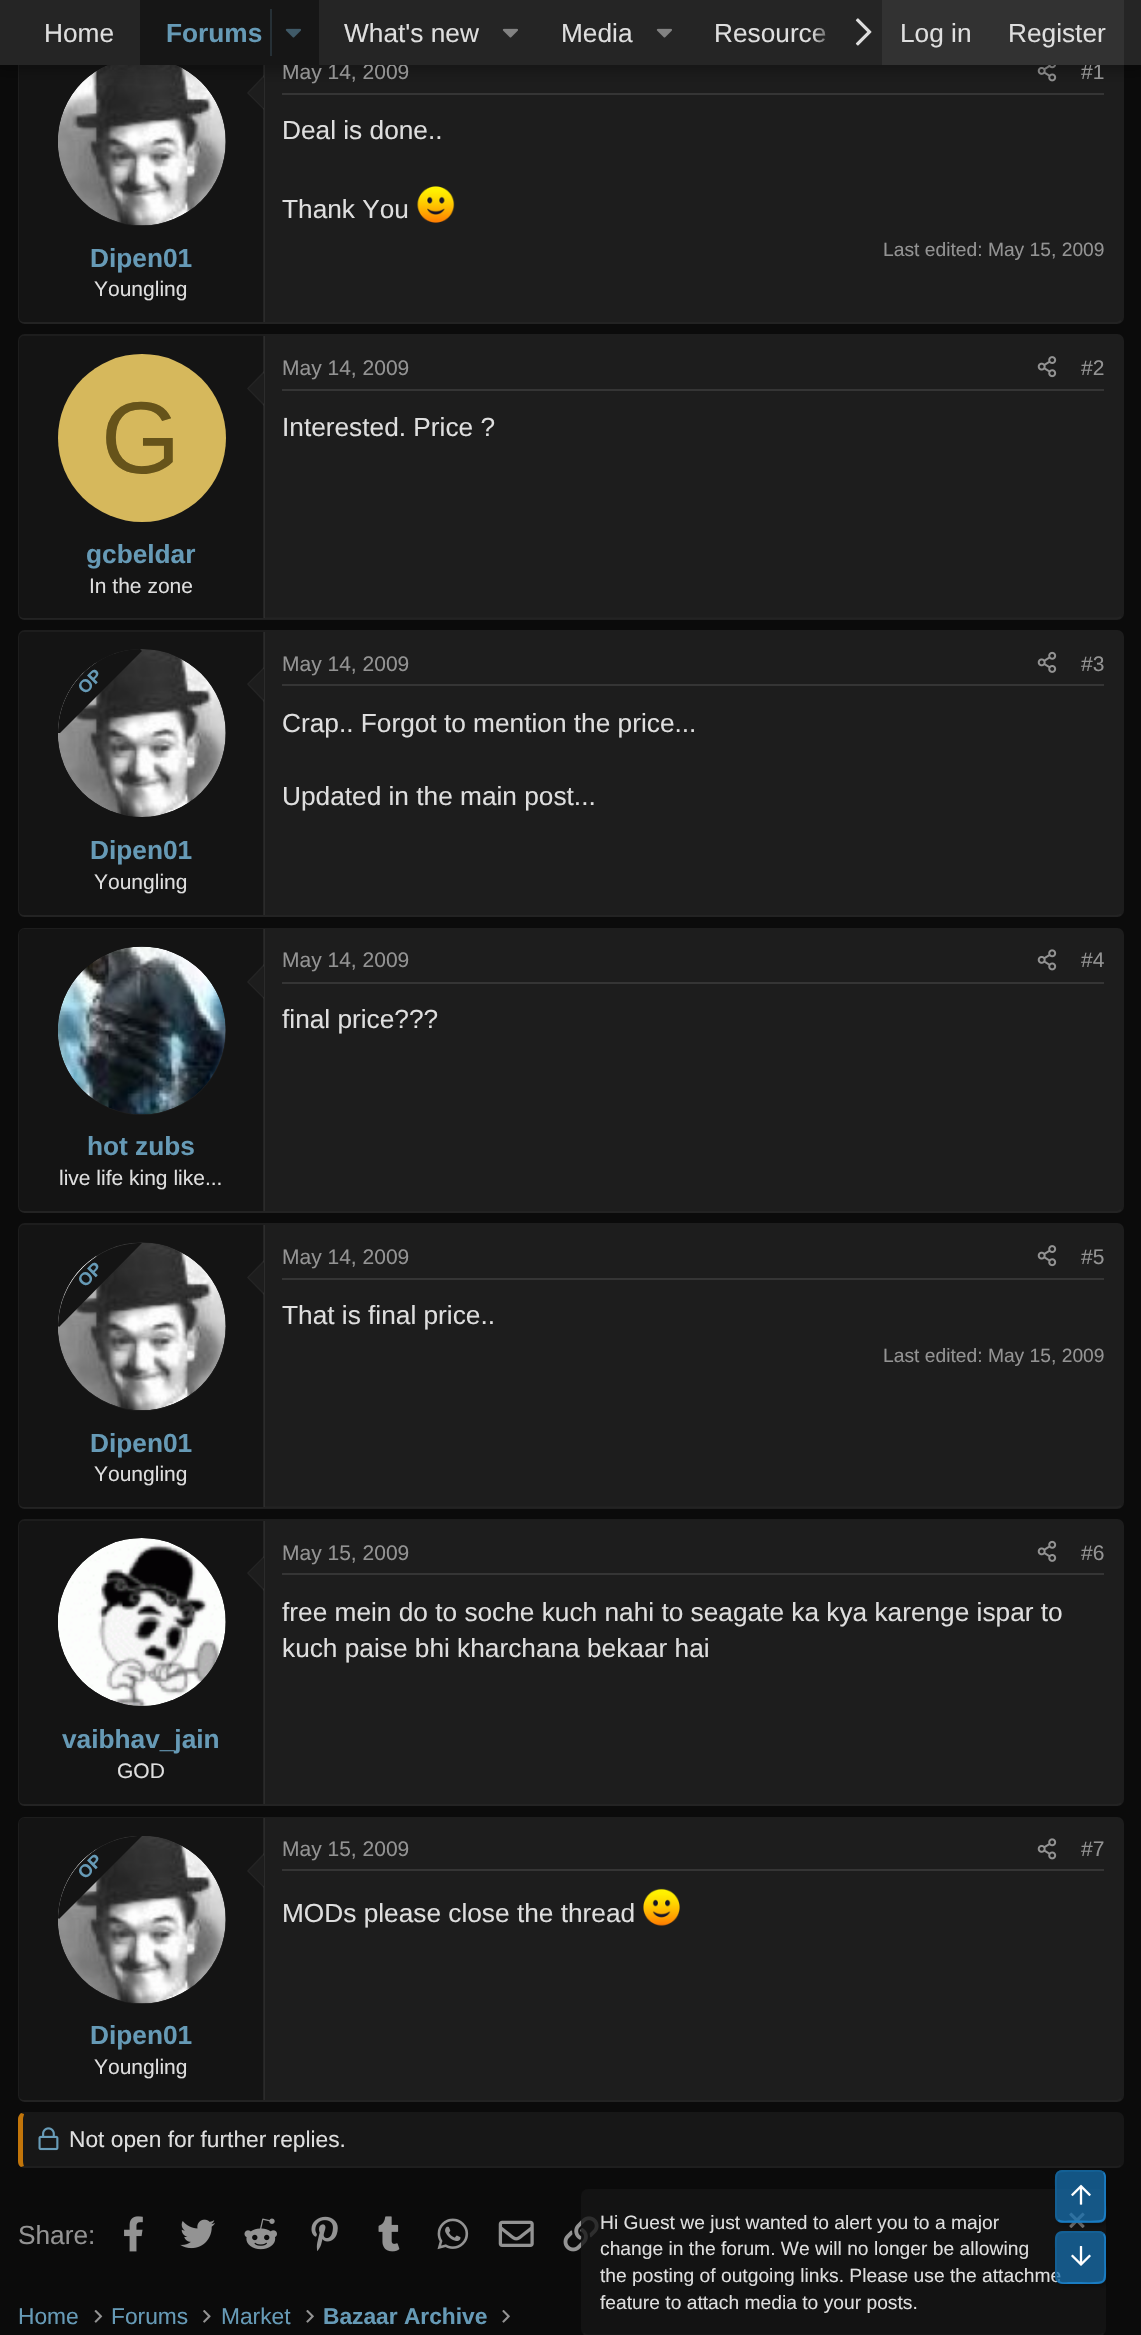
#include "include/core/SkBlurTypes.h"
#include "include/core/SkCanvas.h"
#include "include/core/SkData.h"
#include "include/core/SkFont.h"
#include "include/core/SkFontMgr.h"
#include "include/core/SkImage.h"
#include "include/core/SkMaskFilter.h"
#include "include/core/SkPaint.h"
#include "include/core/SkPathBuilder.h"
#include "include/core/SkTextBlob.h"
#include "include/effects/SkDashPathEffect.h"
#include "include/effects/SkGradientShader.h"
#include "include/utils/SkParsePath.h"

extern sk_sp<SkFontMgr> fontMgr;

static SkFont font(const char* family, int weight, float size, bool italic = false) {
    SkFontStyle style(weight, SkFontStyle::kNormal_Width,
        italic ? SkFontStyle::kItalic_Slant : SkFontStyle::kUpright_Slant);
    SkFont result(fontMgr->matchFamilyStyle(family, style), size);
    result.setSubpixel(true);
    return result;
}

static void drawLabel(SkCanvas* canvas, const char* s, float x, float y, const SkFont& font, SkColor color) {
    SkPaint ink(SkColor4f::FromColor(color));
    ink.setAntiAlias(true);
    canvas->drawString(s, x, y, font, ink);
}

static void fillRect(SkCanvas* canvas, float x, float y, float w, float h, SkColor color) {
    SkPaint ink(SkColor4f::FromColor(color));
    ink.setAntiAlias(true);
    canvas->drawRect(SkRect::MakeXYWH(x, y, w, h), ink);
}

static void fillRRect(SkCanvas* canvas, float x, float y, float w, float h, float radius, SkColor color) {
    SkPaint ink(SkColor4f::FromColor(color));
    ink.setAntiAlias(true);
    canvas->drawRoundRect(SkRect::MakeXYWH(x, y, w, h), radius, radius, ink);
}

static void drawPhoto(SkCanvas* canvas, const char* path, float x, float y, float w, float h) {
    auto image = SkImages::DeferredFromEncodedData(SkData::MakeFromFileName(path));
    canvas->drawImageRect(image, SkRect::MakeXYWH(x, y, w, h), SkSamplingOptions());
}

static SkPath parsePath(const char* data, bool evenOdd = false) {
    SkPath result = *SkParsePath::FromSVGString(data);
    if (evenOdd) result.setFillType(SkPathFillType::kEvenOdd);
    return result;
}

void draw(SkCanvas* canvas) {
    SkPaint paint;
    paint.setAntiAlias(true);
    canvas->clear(0xFF0B0B0B);
    fillRRect(canvas, 18, 39, 1106, 285, 7, 0xFF1D1D1D);
    fillRect(canvas, 264, 65, 1, 257, 0xFF2B2B2B);
    drawPhoto(canvas, "assets/img4.png", 1037, 65, 20, 17);
    paint.setStroke(true);
    paint.setStrokeWidth(1.8f);
    paint.setColor(0x1A5A5A5A);
    canvas->drawPath(parsePath("M1121 321C1119.5 322 1118 323 1116.5 323H24.5C23 323 21.5 322 20 321"), paint);
    paint.setStroke(false);
    paint.setColor(0xFF141414);
    canvas->drawPath(parsePath("M24 40H264V322H24C21 322 19 320 19 317V45C19 42 21 40 24 40Z"), paint);
    fillRect(canvas, 263, 65, 1, 257, 0xFF242424);
    paint.setColor(0xFF1D1D1D);
    canvas->drawCircle(142, 142, 84, paint);
    drawPhoto(canvas, "assets/img6.png", 58, 65, 168, 161);
    paint.setColor(0x33646464);
    canvas->drawPath(parsePath("M264 75V110L247 93Z"), paint);
    paint.setColor(0xFF1D1D1D);
    canvas->drawPath(parsePath("M264 77V108.5L248.5 93Z"), paint);
    paint.setColor(0x4D000000);
    paint.setMaskFilter(SkMaskFilter::MakeBlur(kNormal_SkBlurStyle, 7));
    canvas->drawRect(SkRect::MakeXYWH(-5, -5, 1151, 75), paint);
    paint.setMaskFilter(nullptr);
    SkFont font1 = font("Liberation Sans", 400, 21);
    drawLabel(canvas, "May 14, 2009", 282, 79, font1, 0xFF939393);
    drawLabel(canvas, "#1", 1081, 79, font1, 0xFF939393);
    fillRect(canvas, 0, 0, 1141, 65, 0xFF252525);
    SkFont font2 = font("Liberation Sans", 400, 26.25f);
    drawLabel(canvas, "Home", 44, 42, font2, 0xFFDEDEDE);
    fillRect(canvas, 140, 0, 179, 65, 0xFF161616);
    SkFont font3 = font("Liberation Sans", 700, 26.25f);
    drawLabel(canvas, "Forums", 166, 42, font3, 0xFF669AB6);
    fillRect(canvas, 270, 9, 2, 47, 0xFF263036);
    drawPhoto(canvas, "assets/img1.png", 285, 28, 16, 10);
    drawLabel(canvas, "What's new", 344, 42, font2, 0xFFDEDEDE);
    drawPhoto(canvas, "assets/img2.png", 502, 28, 16, 10);
    drawLabel(canvas, "Media", 561, 42, font2, 0xFFDEDEDE);
    drawPhoto(canvas, "assets/img2.png", 656, 28, 16, 10);
    drawLabel(canvas, "Resource", 714, 42, font2, 0xFFDEDEDE);
    {
        const SkColor colors[] = {0x00252525, 0xFF252525};
        const float stops[] = {0, 0.33f};
        const SkPoint ends[] = {{812, 32}, {882, 32}};
        paint.setShader(SkGradientShader::MakeLinear(ends, colors, stops, 2, SkTileMode::kClamp));
        paint.setAlpha(255);
    }
    canvas->drawRect(SkRect::MakeXYWH(813, 27, 13, 16), paint);
    drawPhoto(canvas, "assets/img3.png", 855, 18, 17, 28);
    fillRect(canvas, 882, 0, 242, 65, 0xFF323232);
    drawLabel(canvas, "Log in", 900, 42, font2, 0xFFDEDEDE);
    drawLabel(canvas, "Register", 1008, 42, font2, 0xFFDEDEDE);
    fillRect(canvas, 282, 93, 822, 2, 0xFF353535);
    drawLabel(canvas, "Deal is done..", 282, 139, font2, 0xFFDEDEDE);
    drawLabel(canvas, "Thank You", 282, 218, font2, 0xFFDEDEDE);
    drawPhoto(canvas, "assets/img5.png", 417, 186, 38, 37);
    SkFont font4 = font("Liberation Sans", 400, 19.25f);
    drawLabel(canvas, "Last edited: May 15, 2009", 883, 256, font4, 0xFF939393);
    drawLabel(canvas, "Dipen01", 90, 267, font3, 0xFF669AB6);
    drawLabel(canvas, "Youngling", 94, 296, font1, 0xFFDEDEDE);
    fillRRect(canvas, 18, 334, 1106, 286, 7, 0xFF1D1D1D);
    paint.setStroke(true);
    paint.setShader(nullptr);
    paint.setColor(0xFF232323);
    canvas->drawPath(parsePath("M1121 617C1119.5 618 1118 618.5 1116.5 618.5H24.5C23 618.5 21.5 618 20 617"), paint);
    paint.setStroke(false);
    paint.setColor(0xFF141414);
    canvas->drawPath(parsePath("M24 336H264V618H24C21 618 19 616 19 613V341C19 338 21 336 24 336Z"), paint);
    fillRect(canvas, 263, 336, 2, 282, 0x33646464);
    paint.setColor(0x33646464);
    canvas->drawPath(parsePath("M264 371V406L247 388.5Z"), paint);
    paint.setColor(0xFF1D1D1D);
    canvas->drawPath(parsePath("M264 373V404L248.5 388.5Z"), paint);
    paint.setColor(0xFFD6B85C);
    canvas->drawCircle(142, 438, 84, paint);
    SkFont font5 = font("Liberation Sans", 400, 102);
    drawLabel(canvas, "G", 101, 473, font5, 0xFF66531A);
    drawLabel(canvas, "gcbeldar", 86, 563, font3, 0xFF669AB6);
    drawLabel(canvas, "In the zone", 89, 593, font1, 0xFFDEDEDE);
    fillRect(canvas, 282, 389, 822, 2, 0xFF353535);
    drawLabel(canvas, "May 14, 2009", 282, 375, font1, 0xFF939393);
    drawPhoto(canvas, "assets/img7.png", 1037, 356, 20, 22);
    drawLabel(canvas, "#2", 1081, 375, font1, 0xFF939393);
    drawLabel(canvas, "Interested. Price ?", 282, 436, font2, 0xFFDEDEDE);
    fillRRect(canvas, 18, 630, 1106, 287, 7, 0xFF1D1D1D);
    fillRect(canvas, 264, 632, 1, 283, 0xFF2B2B2B);
    paint.setStroke(true);
    paint.setColor(0x1A5A5A5A);
    canvas->drawPath(parsePath("M1121 914.5C1119.5 915.5 1118 916 1116.5 916H24.5C23 916 21.5 915.5 20 914.5"), paint);
    paint.setStroke(false);
    paint.setColor(0xFF141414);
    canvas->drawPath(parsePath("M24 632H264V915H24C21 915 19 913 19 910V637C19 634 21 632 24 632Z"), paint);
    fillRect(canvas, 263, 632, 1, 283, 0xFF242424);
    paint.setColor(0xFF1D1D1D);
    canvas->drawCircle(142, 733, 84, paint);
    drawPhoto(canvas, "assets/img8.png", 58, 649, 168, 168);
    paint.setColor(0xFF141414);
    canvas->drawPath(parsePath("M60 733H58C58 687 95 650 140 649L142 651Z"), paint);
    SkFont font6 = font("Liberation Sans", 700, 18);
    canvas->save();
    canvas->rotate(-45, 85, 695);
    drawLabel(canvas, "OP", 85, 695, font6, 0xFF669AB6);
    canvas->restore();
    paint.setColor(0x33646464);
    canvas->drawPath(parsePath("M264 667V702L247 684Z"), paint);
    paint.setColor(0xFF1D1D1D);
    canvas->drawPath(parsePath("M264 668.5V700L248.5 684Z"), paint);
    drawLabel(canvas, "Dipen01", 90, 859, font3, 0xFF669AB6);
    drawLabel(canvas, "Youngling", 94, 889, font1, 0xFFDEDEDE);
    fillRect(canvas, 282, 684, 822, 2, 0xFF353535);
    drawLabel(canvas, "May 14, 2009", 282, 671, font1, 0xFF939393);
    drawPhoto(canvas, "assets/img9.png", 1037, 651, 20, 22);
    drawLabel(canvas, "#3", 1081, 671, font1, 0xFF939393);
    drawLabel(canvas, "Crap.. Forgot to mention the price...", 282, 732, font2, 0xFFDEDEDE);
    drawLabel(canvas, "Updated in the main post...", 282, 805, font2, 0xFFDEDEDE);
    fillRRect(canvas, 18, 928, 1106, 285, 7, 0xFF1D1D1D);
    fillRect(canvas, 264, 929, 1, 282, 0xFF2B2B2B);
    paint.setStroke(true);
    paint.setColor(0x1A5A5A5A);
    canvas->drawPath(parsePath("M1121 1210C1119.5 1211 1118 1212 1116.5 1212H24.5C23 1212 21.5 1211 20 1210"), paint);
    fillRect(canvas, 282, 982, 822, 2, 0xFF353535);
    drawLabel(canvas, "May 14, 2009", 282, 967, font1, 0xFF939393);
    drawPhoto(canvas, "assets/img10.png", 1037, 949, 20, 22);
    drawLabel(canvas, "#4", 1081, 967, font1, 0xFF939393);
    drawLabel(canvas, "final price?\077?", 282, 1028, font2, 0xFFDEDEDE);
    paint.setStroke(false);
    paint.setColor(0xFF141414);
    canvas->drawPath(parsePath("M24 929H264V1211H24C21 1211 19 1209 19 1206V934C19 931 21 929 24 929Z"), paint);
    fillRect(canvas, 263, 929, 1, 282, 0xFF242424);
    paint.setColor(0xFF1D1D1D);
    canvas->drawCircle(142, 1031, 84, paint);
    drawPhoto(canvas, "assets/img11.png", 58, 946, 168, 169);
    paint.setColor(0x33646464);
    canvas->drawPath(parsePath("M264 964V999L247 982Z"), paint);
    paint.setColor(0xFF1D1D1D);
    canvas->drawPath(parsePath("M264 966V997.5L248.5 982Z"), paint);
    drawLabel(canvas, "hot zubs", 87, 1155, font3, 0xFF669AB6);
    drawLabel(canvas, "live life king like...", 59, 1185, font1, 0xFFDEDEDE);
    fillRRect(canvas, 18, 1223, 1106, 286, 7, 0xFF1D1D1D);
    paint.setStroke(true);
    paint.setColor(0xFF232323);
    canvas->drawPath(parsePath("M1121 1506C1119.5 1507 1118 1507.5 1116.5 1507.5H24.5C23 1507.5 21.5 1507 20 1506"), paint);
    paint.setStroke(false);
    paint.setColor(0xFF141414);
    canvas->drawPath(parsePath("M24 1225H264V1507H24C21 1507 19 1505 19 1502V1230C19 1227 21 1225 24 1225Z"), paint);
    fillRect(canvas, 263, 1225, 2, 282, 0x33646464);
    paint.setColor(0xFF1D1D1D);
    canvas->drawCircle(142, 1327, 84, paint);
    drawPhoto(canvas, "assets/img12.png", 58, 1242, 168, 168);
    paint.setColor(0xFF141414);
    canvas->drawPath(parsePath("M142 1243C96 1243 59 1280 58 1326L59 1327Z"), paint);
    canvas->save();
    canvas->rotate(-45, 85, 1288);
    drawLabel(canvas, "OP", 85, 1288, font6, 0xFF669AB6);
    canvas->restore();
    paint.setColor(0x33646464);
    canvas->drawPath(parsePath("M264 1260V1295L247 1277.5Z"), paint);
    paint.setColor(0xFF1D1D1D);
    canvas->drawPath(parsePath("M264 1262V1293L248.5 1277.5Z"), paint);
    drawLabel(canvas, "Dipen01", 90, 1452, font3, 0xFF669AB6);
    drawLabel(canvas, "Youngling", 94, 1481, font1, 0xFFDEDEDE);
    fillRect(canvas, 282, 1278, 822, 2, 0xFF353535);
    drawLabel(canvas, "May 14, 2009", 282, 1264, font1, 0xFF939393);
    drawPhoto(canvas, "assets/img7.png", 1037, 1245, 20, 22);
    drawLabel(canvas, "#5", 1081, 1264, font1, 0xFF939393);
    drawLabel(canvas, "That is final price..", 282, 1324, font2, 0xFFDEDEDE);
    drawLabel(canvas, "Last edited: May 15, 2009", 883, 1362, font4, 0xFF939393);
    fillRRect(canvas, 18, 1519, 1106, 287, 7, 0xFF1D1D1D);
    fillRect(canvas, 264, 1521, 1, 283, 0xFF2B2B2B);
    paint.setStroke(true);
    paint.setColor(0x1A5A5A5A);
    canvas->drawPath(parsePath("M1121 1803.5C1119.5 1804.5 1118 1805 1116.5 1805H24.5C23 1805 21.5 1804.5 20 1803.5"), paint);
    fillRect(canvas, 282, 1573, 822, 2, 0xFF353535);
    drawLabel(canvas, "May 15, 2009", 282, 1560, font1, 0xFF939393);
    drawPhoto(canvas, "assets/img9.png", 1037, 1540, 20, 22);
    drawLabel(canvas, "#6", 1081, 1560, font1, 0xFF939393);
    drawLabel(canvas, "free mein do to soche kuch nahi to seagate ka kya karenge ispar to", 282, 1621, font2, 0xFFDEDEDE);
    drawLabel(canvas, "kuch paise bhi kharchana bekaar hai", 282, 1657, font2, 0xFFDEDEDE);
    paint.setStroke(false);
    paint.setColor(0xFF141414);
    canvas->drawPath(parsePath("M24 1521H264V1804H24C21 1804 19 1802 19 1799V1526C19 1523 21 1521 24 1521Z"), paint);
    fillRect(canvas, 263, 1521, 1, 283, 0xFF242424);
    paint.setColor(0xFF1D1D1D);
    canvas->drawCircle(142, 1622, 84, paint);
    drawPhoto(canvas, "assets/img13.png", 58, 1538, 168, 168);
    paint.setColor(0x33646464);
    canvas->drawPath(parsePath("M264 1556V1591L247 1573Z"), paint);
    paint.setColor(0xFF1D1D1D);
    canvas->drawPath(parsePath("M264 1557.5V1589L248.5 1573Z"), paint);
    drawLabel(canvas, "vaibhav_jain", 62, 1748, font3, 0xFF669AB6);
    drawLabel(canvas, "GOD", 117, 1778, font1, 0xFFDEDEDE);
    fillRRect(canvas, 18, 1817, 1106, 285, 7, 0xFF1D1D1D);
    fillRect(canvas, 264, 1818, 1, 282, 0xFF2B2B2B);
    paint.setStroke(true);
    paint.setColor(0x1A5A5A5A);
    canvas->drawPath(parsePath("M1121 2099C1119.5 2100 1118 2101 1116.5 2101H24.5C23 2101 21.5 2100 20 2099"), paint);
    paint.setStroke(false);
    paint.setColor(0xFF141414);
    canvas->drawPath(parsePath("M24 1818H264V2100H24C21 2100 19 2098 19 2095V1823C19 1820 21 1818 24 1818Z"), paint);
    fillRect(canvas, 263, 1818, 1, 282, 0xFF242424);
    paint.setColor(0xFF1D1D1D);
    canvas->drawCircle(142, 1920, 84, paint);
    drawPhoto(canvas, "assets/img14.png", 58, 1836, 168, 168);
    paint.setColor(0xFF141414);
    canvas->drawPath(parsePath("M142 1836C96 1836 59 1873 58 1918L59 1919Z"), paint);
    canvas->save();
    canvas->rotate(-45, 85, 1880);
    drawLabel(canvas, "OP", 85, 1880, font6, 0xFF669AB6);
    canvas->restore();
    paint.setColor(0x33646464);
    canvas->drawPath(parsePath("M264 1853V1888L247 1871Z"), paint);
    paint.setColor(0xFF1D1D1D);
    canvas->drawPath(parsePath("M264 1855V1886.5L248.5 1871Z"), paint);
    drawLabel(canvas, "Dipen01", 90, 2044, font3, 0xFF669AB6);
    drawLabel(canvas, "Youngling", 94, 2074, font1, 0xFFDEDEDE);
    fillRect(canvas, 282, 1869, 822, 2, 0xFF353535);
    drawLabel(canvas, "May 15, 2009", 282, 1856, font1, 0xFF939393);
    drawPhoto(canvas, "assets/img10.png", 1037, 1838, 20, 22);
    drawLabel(canvas, "#7", 1081, 1856, font1, 0xFF939393);
    drawLabel(canvas, "MODs please close the thread", 282, 1922, font2, 0xFFDEDEDE);
    drawPhoto(canvas, "assets/img15.png", 643, 1888, 37, 38);
    fillRRect(canvas, 18, 2112, 1106, 56, 7, 0xFF171717);
    paint.setColor(0x1A5A5A5A);
    canvas->drawPath(parsePath("M1121 2166C1120 2167 1118 2168 1116 2168H24L21 2167L24 2166H1116C1117 2166 1119 2166 1120 2165Z"), paint);
    paint.setColor(0xFFC2750A);
    canvas->drawPath(parsePath("M21 2167C19 2166 18 2164 18 2161V2119C18 2117 19 2115 21 2113L24 2114C24 2115 23 2117 23 2119V2161C23 2164 24 2166 24 2166Z"), paint);
    drawPhoto(canvas, "assets/img16.png", 38, 2127, 21, 24);
    SkFont font7 = font("Liberation Sans", 400, 22.75f);
    drawLabel(canvas, "Not open for further replies.", 69, 2147, font7, 0xFFDEDEDE);
    drawLabel(canvas, "Share:", 18, 2244, font2, 0xFF939393);
    drawPhoto(canvas, "assets/img17.png", 124, 2216, 19, 36);
    drawPhoto(canvas, "assets/img18.png", 180, 2219, 35, 30);
    drawPhoto(canvas, "assets/img19.png", 244, 2218, 33, 32);
    drawPhoto(canvas, "assets/img20.png", 311, 2216, 27, 35);
    drawPhoto(canvas, "assets/img21.png", 378, 2216, 22, 36);
    drawPhoto(canvas, "assets/img22.png", 437, 2218, 32, 32);
    drawPhoto(canvas, "assets/img23.png", 498, 2220, 36, 27);
    drawPhoto(canvas, "assets/img24.png", 563, 2216, 36, 36);
    drawLabel(canvas, "Home", 18, 2324, font7, 0xFF669AB6);
    drawPhoto(canvas, "assets/img25.png", 94, 2310, 9, 13);
    drawLabel(canvas, "Forums", 111, 2324, font7, 0xFF669AB6);
    drawPhoto(canvas, "assets/img26.png", 203, 2310, 8, 13);
    drawLabel(canvas, "Market", 221, 2324, font7, 0xFF669AB6);
    drawPhoto(canvas, "assets/img27.png", 306, 2310, 8, 13);
    SkFont font8 = font("Liberation Sans", 700, 22.75f);
    drawLabel(canvas, "Bazaar Archive", 323, 2324, font8, 0xFF669AB6);
    drawPhoto(canvas, "assets/img27.png", 502, 2310, 8, 13);
    fillRRect(canvas, 581, 2189, 525, 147, 7, 0xCC141414);
    paint.setStroke(true);
    paint.setColor(0x1A5A5A5A);
    canvas->drawPath(parsePath("M1103.5 2333.5C1102 2334.5 1100.5 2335.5 1099 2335.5H588C586.5 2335.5 585 2334.5 583.5 2333.5"), paint);
    drawLabel(canvas, "Hi Guest we just wanted to alert you to a major", 600, 2229, font4, 0xFFDEDEDE);
    drawPhoto(canvas, "assets/img28.png", 1069, 2212, 16, 16);
    drawLabel(canvas, "change in the forum. We will no longer be allowing", 600, 2255, font4, 0xFFDEDEDE);
    drawLabel(canvas, "the posting of outgoing links. Please use the attachme", 600, 2282, font4, 0xFFDEDEDE);
    drawLabel(canvas, "feature to attach media to your posts.", 600, 2309, font4, 0xFFDEDEDE);
    canvas->save();
    canvas->clipPath(parsePath("M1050 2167H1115V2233H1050ZM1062 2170H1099C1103 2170 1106 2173 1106 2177V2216C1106 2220 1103 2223 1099 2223H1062C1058 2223 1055 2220 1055 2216V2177C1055 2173 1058 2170 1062 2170Z", true), true);
    paint.setStroke(false);
    paint.setColor(0x40000000);
    paint.setMaskFilter(SkMaskFilter::MakeBlur(kNormal_SkBlurStyle, 2));
    canvas->drawRoundRect(SkRect::MakeXYWH(1057, 2174, 51, 52), 7, 7, paint);
    paint.setMaskFilter(nullptr);
    canvas->restore();
    fillRRect(canvas, 1055, 2170, 51, 53, 7, 0xBF166EAC);
    paint.setStroke(true);
    paint.setColor(0xFF197CC3);
    canvas->drawPath(parsePath("M1103.5 2172.5C1106 2175.5 1105 2180 1105 2183.5V2196C1105 2225 1109 2221.5 1080.5 2221.5H1068.5C1065 2221.5 1060.5 2222.5 1058 2220"), paint);
    paint.setColor(0xFF136095);
    canvas->drawPath(parsePath("M1058 2220C1055 2217 1056 2212.5 1056 2209V2196C1056 2167.5 1052 2171 1080.5 2171H1093C1096 2171 1100.5 2170 1103.5 2172.5"), paint);
    drawPhoto(canvas, "assets/img29.png", 1071, 2184, 20, 21);
    canvas->save();
    canvas->clipPath(parsePath("M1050 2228H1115V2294H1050ZM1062 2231H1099C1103 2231 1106 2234 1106 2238V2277C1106 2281 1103 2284 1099 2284H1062C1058 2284 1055 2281 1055 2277V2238C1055 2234 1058 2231 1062 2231Z", true), true);
    paint.setStroke(false);
    paint.setColor(0x40000000);
    paint.setMaskFilter(SkMaskFilter::MakeBlur(kNormal_SkBlurStyle, 2));
    canvas->drawRoundRect(SkRect::MakeXYWH(1057, 2235, 51, 52), 7, 7, paint);
    paint.setMaskFilter(nullptr);
    canvas->restore();
    fillRRect(canvas, 1055, 2231, 51, 53, 7, 0xBF166EAC);
    paint.setStroke(true);
    paint.setColor(0xFF197CC3);
    canvas->drawPath(parsePath("M1103.5 2234C1106 2236.5 1105 2241.5 1105 2244.5V2257.5C1105 2286 1109 2283 1080.5 2283H1068.5C1065 2283 1060.5 2284 1058 2281"), paint);
    paint.setColor(0xFF136095);
    canvas->drawPath(parsePath("M1058 2281C1055 2278.5 1056 2273.5 1056 2270.5V2257.5C1056 2229 1052 2232 1080.5 2232H1093C1096 2232 1100.5 2231 1103.5 2234"), paint);
    drawPhoto(canvas, "assets/img30.png", 1071, 2246, 20, 20);
}
